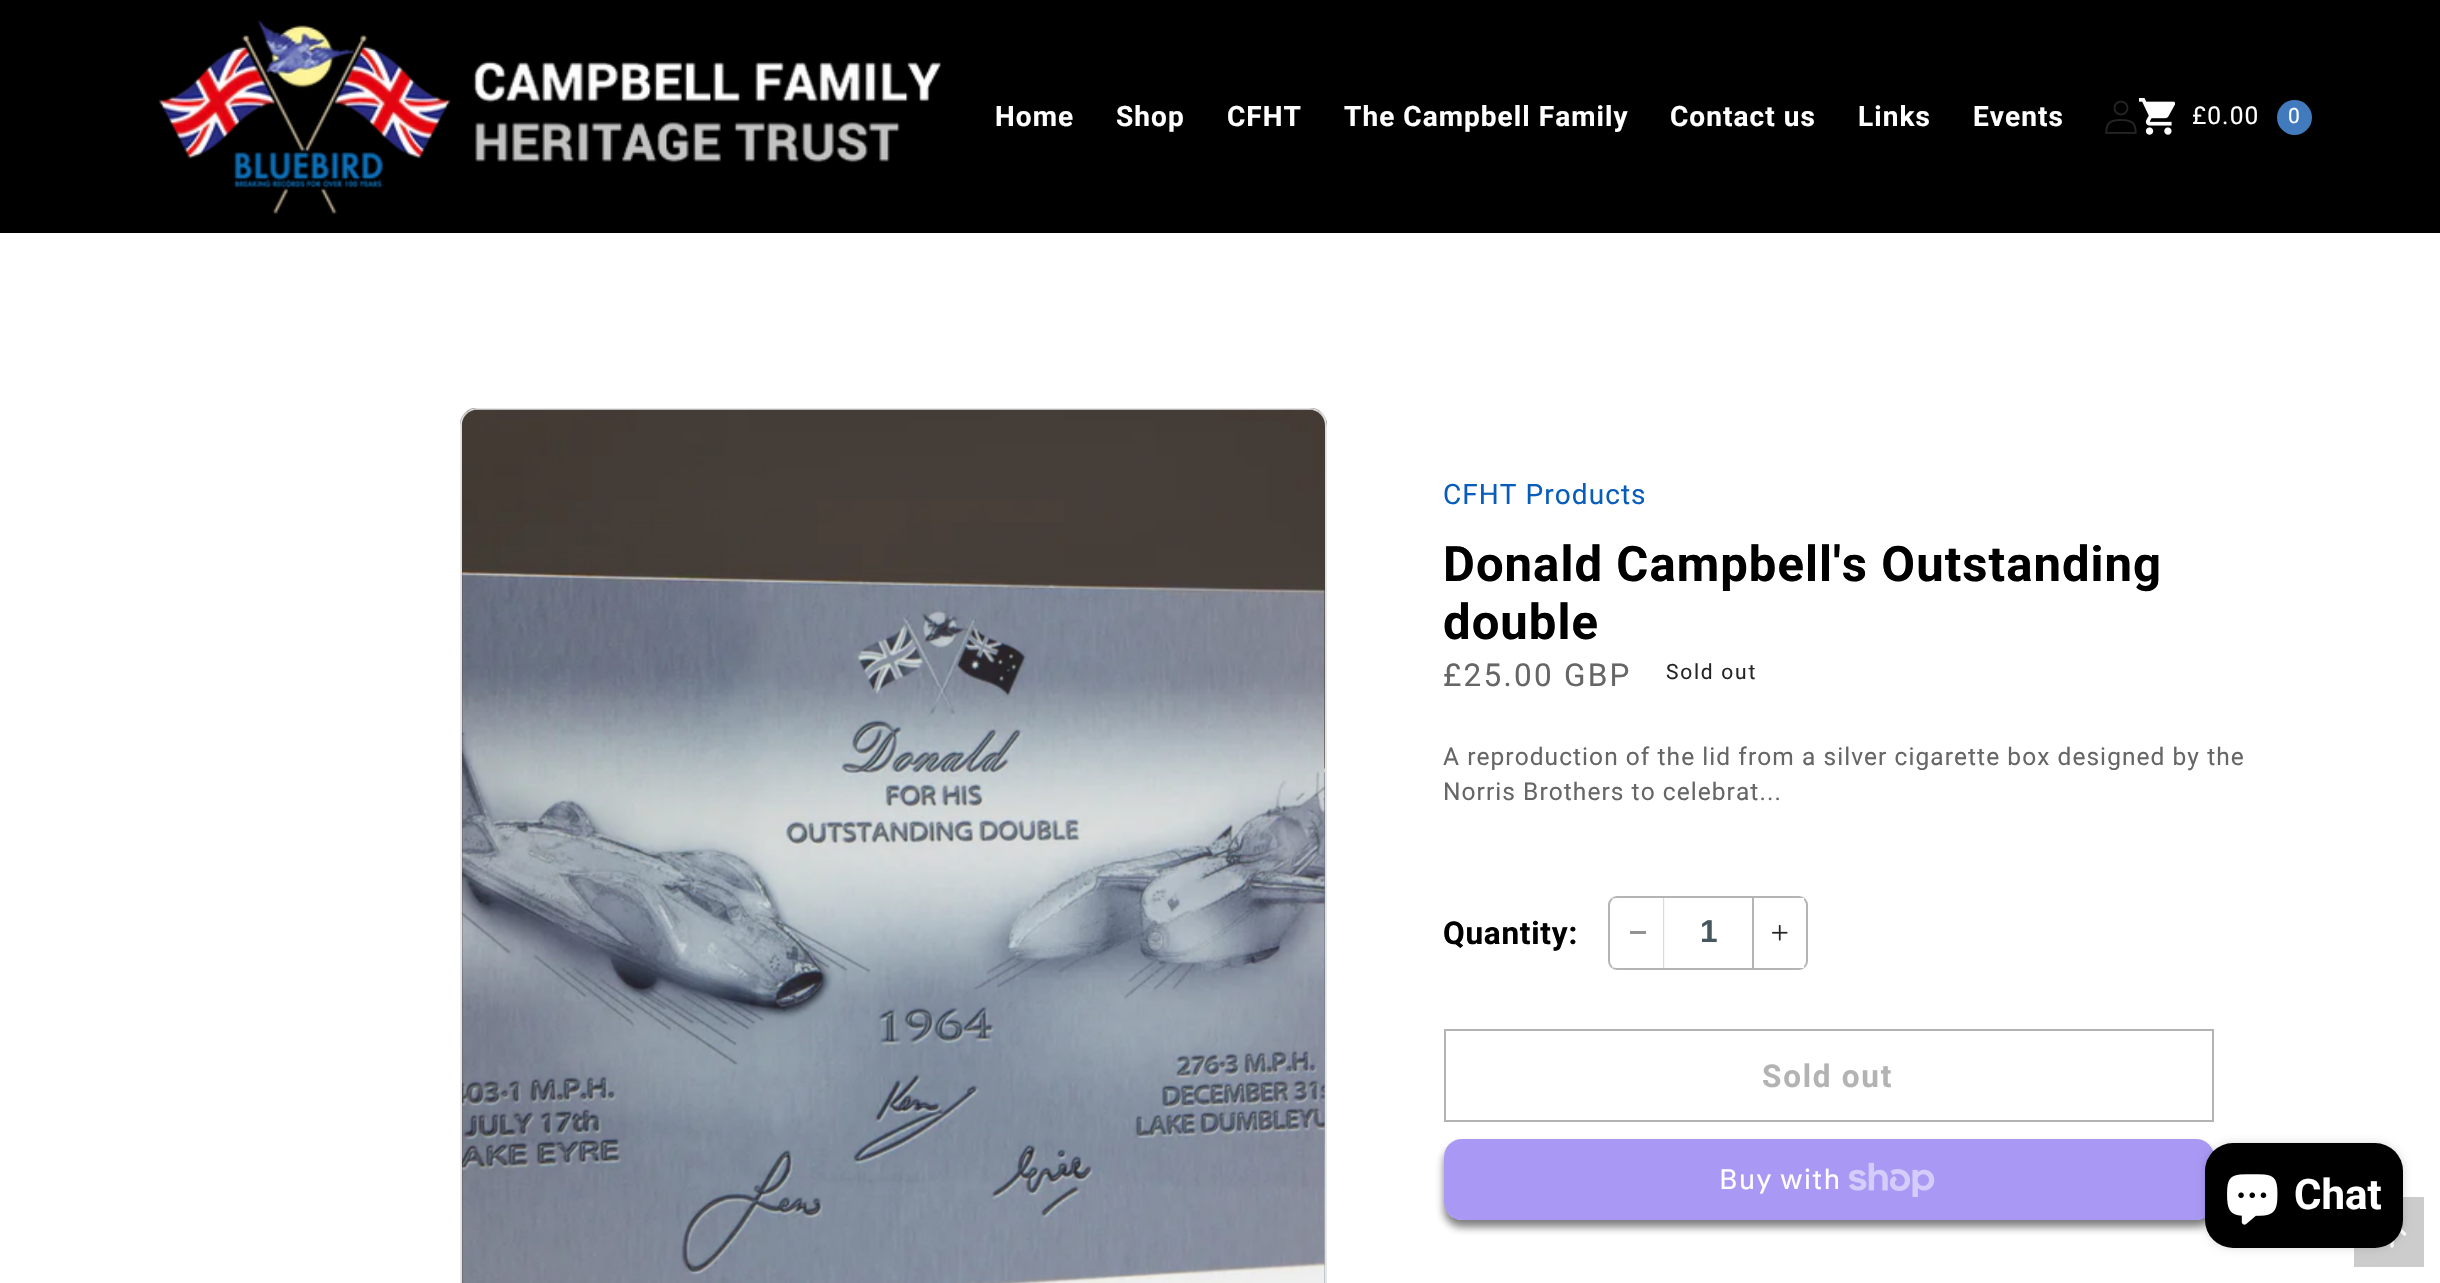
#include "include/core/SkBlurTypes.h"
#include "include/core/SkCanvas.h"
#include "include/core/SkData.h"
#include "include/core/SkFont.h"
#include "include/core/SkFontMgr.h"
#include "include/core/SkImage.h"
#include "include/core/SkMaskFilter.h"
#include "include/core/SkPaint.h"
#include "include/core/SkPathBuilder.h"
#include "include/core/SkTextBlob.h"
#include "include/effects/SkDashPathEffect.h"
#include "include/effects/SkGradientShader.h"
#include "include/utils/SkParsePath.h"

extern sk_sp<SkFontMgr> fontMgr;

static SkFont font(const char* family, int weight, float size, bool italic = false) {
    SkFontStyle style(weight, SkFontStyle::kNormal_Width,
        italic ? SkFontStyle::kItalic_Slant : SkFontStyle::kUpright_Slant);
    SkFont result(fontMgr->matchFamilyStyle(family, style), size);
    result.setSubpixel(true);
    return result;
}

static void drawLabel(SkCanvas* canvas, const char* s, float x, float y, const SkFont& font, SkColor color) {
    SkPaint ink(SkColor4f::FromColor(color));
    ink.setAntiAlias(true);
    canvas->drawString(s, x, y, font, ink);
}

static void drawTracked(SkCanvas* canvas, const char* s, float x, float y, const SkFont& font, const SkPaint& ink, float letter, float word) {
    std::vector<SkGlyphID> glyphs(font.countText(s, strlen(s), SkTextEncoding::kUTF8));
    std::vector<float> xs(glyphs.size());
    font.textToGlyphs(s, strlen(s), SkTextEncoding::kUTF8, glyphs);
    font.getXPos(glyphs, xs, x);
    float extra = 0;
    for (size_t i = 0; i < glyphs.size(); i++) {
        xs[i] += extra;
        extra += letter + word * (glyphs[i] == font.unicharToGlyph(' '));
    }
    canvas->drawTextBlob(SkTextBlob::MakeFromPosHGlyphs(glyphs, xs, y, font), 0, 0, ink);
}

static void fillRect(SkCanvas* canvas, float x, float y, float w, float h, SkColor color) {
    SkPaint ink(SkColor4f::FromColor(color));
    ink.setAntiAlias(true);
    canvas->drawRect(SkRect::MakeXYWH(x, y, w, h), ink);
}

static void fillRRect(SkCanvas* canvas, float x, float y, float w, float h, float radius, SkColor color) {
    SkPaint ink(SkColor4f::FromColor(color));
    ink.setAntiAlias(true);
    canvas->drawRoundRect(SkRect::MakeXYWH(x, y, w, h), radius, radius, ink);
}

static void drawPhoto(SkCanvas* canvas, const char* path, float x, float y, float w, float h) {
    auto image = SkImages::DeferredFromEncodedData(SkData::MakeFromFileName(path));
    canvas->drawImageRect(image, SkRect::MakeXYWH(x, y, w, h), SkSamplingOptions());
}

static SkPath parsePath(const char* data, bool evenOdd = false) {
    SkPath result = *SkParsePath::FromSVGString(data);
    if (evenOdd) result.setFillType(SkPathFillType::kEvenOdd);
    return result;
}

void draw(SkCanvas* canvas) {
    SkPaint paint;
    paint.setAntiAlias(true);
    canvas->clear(0xFFFFFFFF);
    fillRect(canvas, 0, 0, 2440, 233, 0xFF000000);
    drawPhoto(canvas, "assets/img1.png", 159, 20, 782, 194);
    SkFont font1 = font("Roboto", 700, 28);
    paint.setColor(0xFFFFFFFF);
    drawTracked(canvas, "Home", 995, 126, font1, paint, 1.05f, 0);
    drawTracked(canvas, "Shop", 1116, 126, font1, paint, 1.05f, 0);
    drawTracked(canvas, "CFHT", 1227, 126, font1, paint, 1.05f, 0);
    drawTracked(canvas, "The Campbell Family", 1344, 126, font1, paint, 1.05f, 0);
    drawTracked(canvas, "Contact us", 1670, 126, font1, paint, 1.05f, 0);
    drawTracked(canvas, "Links", 1858, 126, font1, paint, 1.05f, 0);
    drawTracked(canvas, "Events", 1973, 126, font1, paint, 1.05f, 0);
    drawPhoto(canvas, "assets/img2.png", 2105, 100, 32, 34);
    drawPhoto(canvas, "assets/img3.png", 2139, 98, 36, 37);
    SkFont font2 = font("Roboto", 400, 24.5f);
    drawTracked(canvas, "£0.00", 2192, 124, font2, paint, 1.05f, 0);
    paint.setColor(0xFF417ABD);
    canvas->drawCircle(2294.5f, 117.5f, 17.5f, paint);
    SkFont font3 = font("Roboto", 400, 21);
    drawLabel(canvas, "0", 2288, 123, font3, 0xFFFFFFFF);
    drawPhoto(canvas, "assets/img4.png", 460, 408, 867, 875);
    paint.setStroke(true);
    paint.setStrokeWidth(2);
    paint.setColor(0xFFE7E7E7);
    canvas->drawRoundRect(SkRect::MakeXYWH(461, 409, 865, 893), 17, 17, paint);
    drawPhoto(canvas, "assets/img5.png", 461, 409, 865, 874);
    SkFont font4 = font("Roboto", 400, 28);
    paint.setStroke(false);
    paint.setColor(0xFF075CBC);
    drawTracked(canvas, "CFHT Products", 1443, 504, font4, paint, 1.05f, 0);
    SkFont font5 = font("Roboto", 700, 49);
    paint.setColor(0xFF000000);
    drawTracked(canvas, "Donald Campbell's Outstanding", 1443, 581, font5, paint, 1.05f, 0);
    drawTracked(canvas, "double", 1443, 639, font5, paint, 1.05f, 0);
    SkFont font6 = font("Roboto", 400, 31.5f);
    paint.setColor(0xFF666666);
    drawTracked(canvas, "£25.00 GBP", 1443, 686, font6, paint, 2.25f, 0);
    paint.setColor(0xFF252525);
    drawTracked(canvas, "Sold out", 1666, 679, font3, paint, 1.75f, 0);
    paint.setColor(0xFF666666);
    drawTracked(canvas, "A reproduction of the lid from a silver cigarette box designed by the", 1443, 765, font2, paint, 1.05f, 0);
    drawTracked(canvas, "Norris Brothers to celebrat...", 1443, 800, font2, paint, 1.05f, 0);
    SkFont font7 = font("Roboto", 700, 31.5f);
    paint.setColor(0xFF000000);
    drawTracked(canvas, "Quantity:", 1443, 944, font7, paint, 0.75f, 0);
    paint.setStroke(true);
    paint.setColor(0xFFB4B4B4);
    canvas->drawRoundRect(SkRect::MakeXYWH(1609, 897, 198, 72), 8, 8, paint);
    fillRect(canvas, 1612, 898, 4, 70, 0x80FFFFFF);
    fillRect(canvas, 1663, 898, 1, 70, 0xFFDADADA);
    fillRect(canvas, 1664, 898, 1, 70, 0xFFF9F9F9);
    fillRect(canvas, 1630, 931, 16, 3, 0xFF929292);
    SkFont font8 = font("Liberation Sans", 700, 31.5f);
    drawLabel(canvas, "1", 1700, 942, font8, 0xFF46575D);
    fillRect(canvas, 1799, 898, 5, 70, 0xFFFFFFFF);
    fillRect(canvas, 1752, 898, 2, 70, 0xFFB4B4B4);
    drawPhoto(canvas, "assets/img6.png", 1771, 924, 17, 17);
    paint.setColor(0xFFB3B3B3);
    canvas->drawRect(SkRect::MakeXYWH(1445, 1030, 768, 91), paint);
    paint.setStroke(false);
    drawTracked(canvas, "Sold out", 1762, 1087, font7, paint, 1.75f, 0);
    canvas->save();
    canvas->clipPath(parsePath("M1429 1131H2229V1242H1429ZM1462 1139H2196C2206 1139 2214 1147 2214 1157V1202C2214 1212 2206 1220 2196 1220H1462C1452 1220 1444 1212 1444 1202V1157C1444 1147 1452 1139 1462 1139Z", true), true);
    paint.setColor(0x99252525);
    paint.setMaskFilter(SkMaskFilter::MakeBlur(kNormal_SkBlurStyle, 4.5f));
    canvas->drawRoundRect(SkRect::MakeXYWH(1444, 1146, 770, 81), 18, 18, paint);
    paint.setMaskFilter(nullptr);
    canvas->restore();
    fillRRect(canvas, 1444, 1139, 770, 81, 18, 0x805433EB);
    SkFont font9 = font("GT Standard", 400, 28);
    paint.setColor(0xFFFFFFFF);
    drawTracked(canvas, "Buy with", 1719, 1189, font9, paint, 1.05f, 0);
    drawPhoto(canvas, "assets/img7.png", 1849, 1162, 86, 35);
    fillRect(canvas, 2354, 1197, 70, 70, 0xFFCCCCCC);
    paint.setStroke(true);
    paint.setStrokeWidth(3.5f);
    paint.setStrokeCap(SkPaint::kRound_Cap);
    paint.setStrokeJoin(SkPaint::kRound_Join);
    canvas->drawPath(parsePath("M2392 1246V1221.5M2380 1234L2392 1221.5L2404.5 1234"), paint);
    paint.setStroke(false);
    paint.setColor(0x26000000);
    paint.setMaskFilter(SkMaskFilter::MakeBlur(kNormal_SkBlurStyle, 4.5f));
    canvas->drawRoundRect(SkRect::MakeXYWH(2205, 1143, 198, 105), 28, 28, paint);
    paint.setMaskFilter(nullptr);
    fillRRect(canvas, 2205, 1143, 198, 105, 28, 0xFF000000);
    drawPhoto(canvas, "assets/img8.png", 2227, 1174, 51, 51);
    SkFont font10 = font("Roboto", 700, 42);
    drawLabel(canvas, "Chat", 2294, 1209, font10, 0xFFFFFFFF);
}
